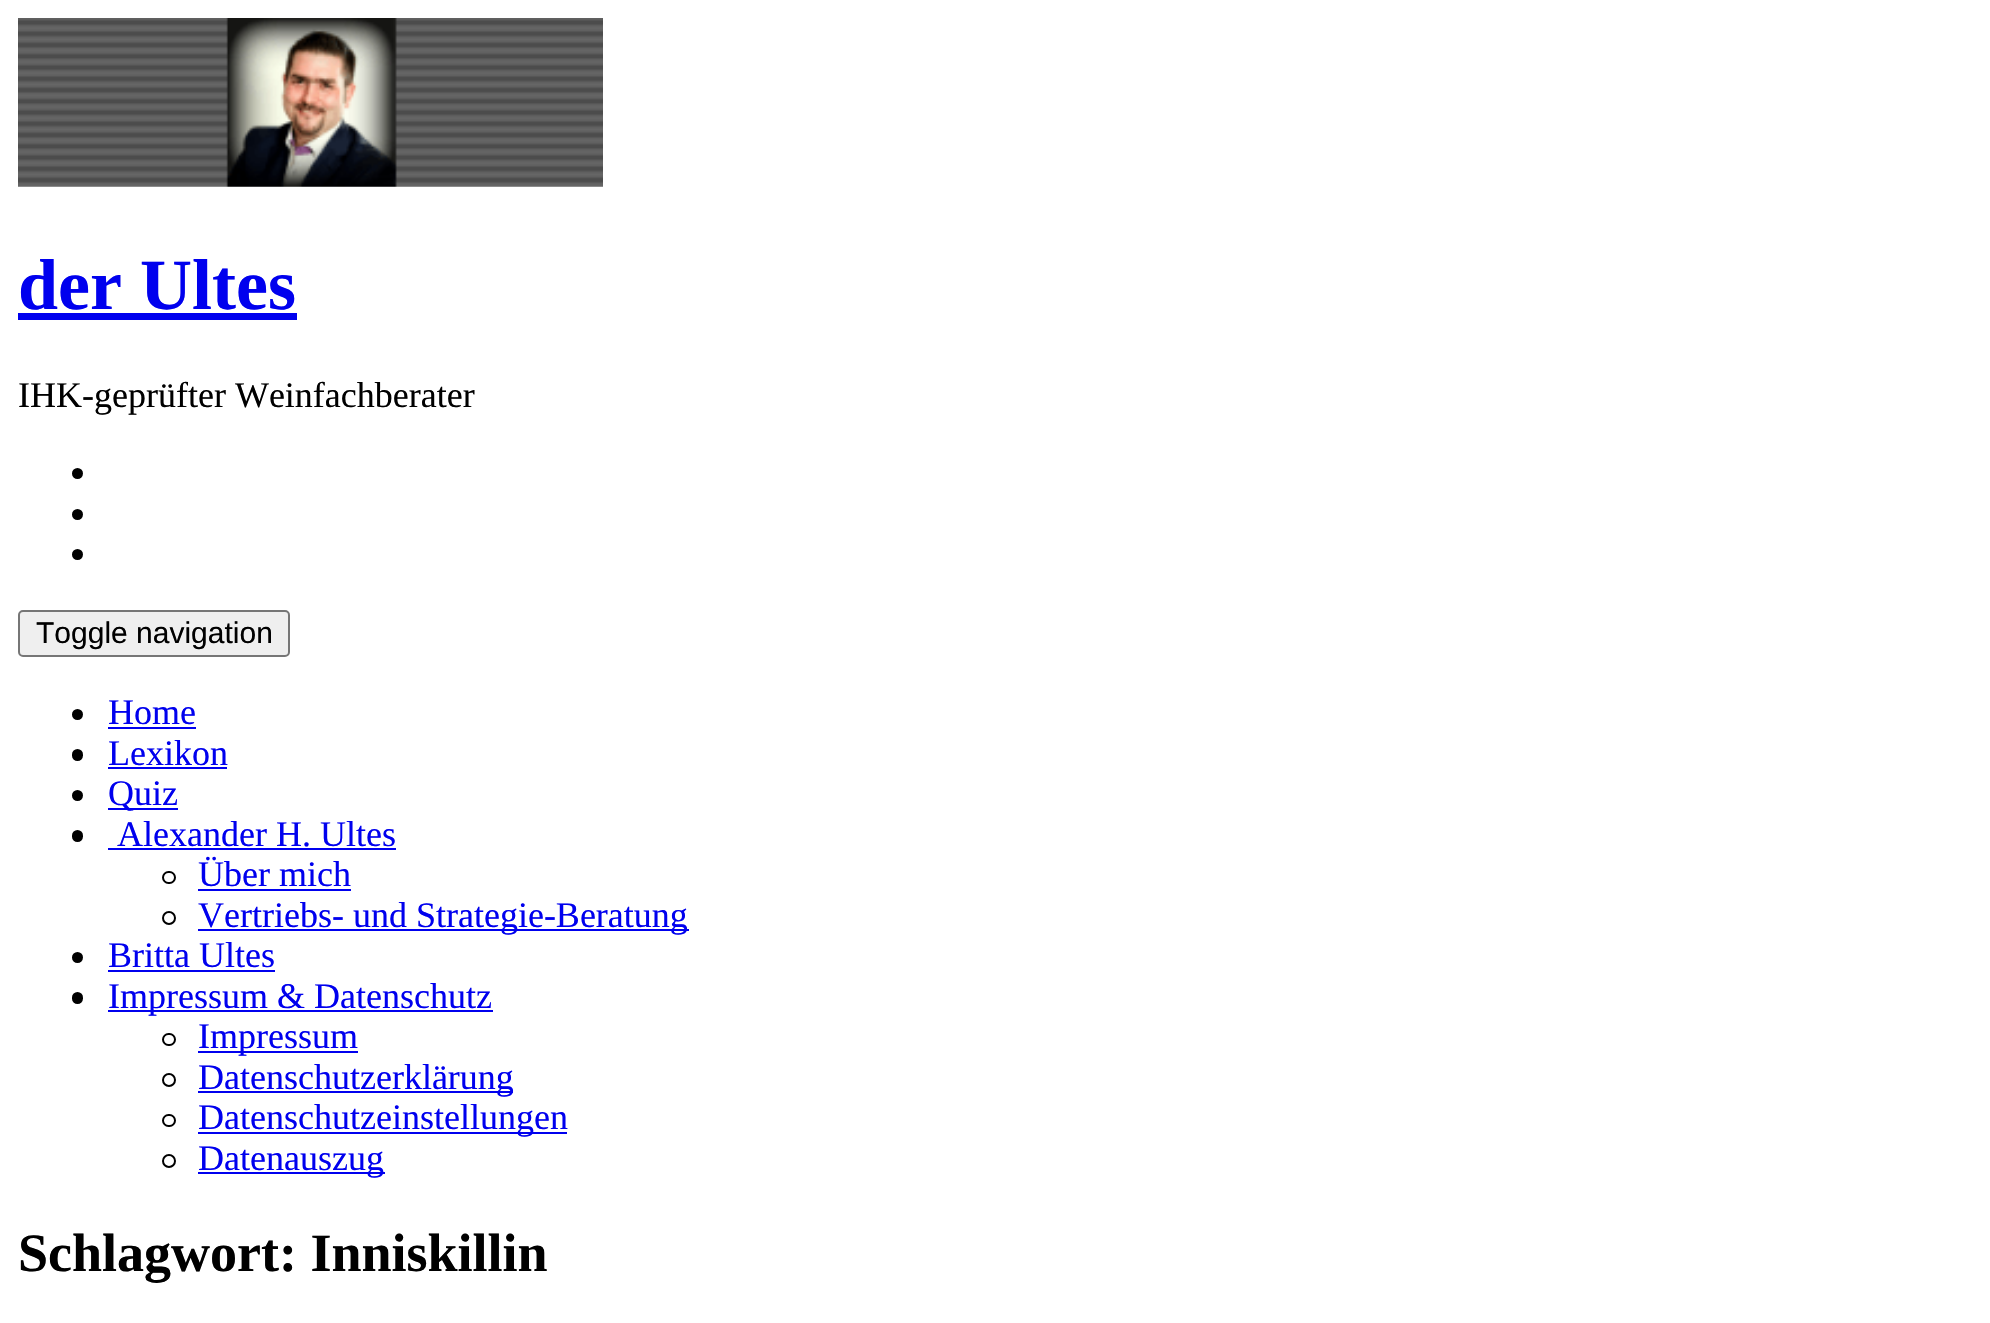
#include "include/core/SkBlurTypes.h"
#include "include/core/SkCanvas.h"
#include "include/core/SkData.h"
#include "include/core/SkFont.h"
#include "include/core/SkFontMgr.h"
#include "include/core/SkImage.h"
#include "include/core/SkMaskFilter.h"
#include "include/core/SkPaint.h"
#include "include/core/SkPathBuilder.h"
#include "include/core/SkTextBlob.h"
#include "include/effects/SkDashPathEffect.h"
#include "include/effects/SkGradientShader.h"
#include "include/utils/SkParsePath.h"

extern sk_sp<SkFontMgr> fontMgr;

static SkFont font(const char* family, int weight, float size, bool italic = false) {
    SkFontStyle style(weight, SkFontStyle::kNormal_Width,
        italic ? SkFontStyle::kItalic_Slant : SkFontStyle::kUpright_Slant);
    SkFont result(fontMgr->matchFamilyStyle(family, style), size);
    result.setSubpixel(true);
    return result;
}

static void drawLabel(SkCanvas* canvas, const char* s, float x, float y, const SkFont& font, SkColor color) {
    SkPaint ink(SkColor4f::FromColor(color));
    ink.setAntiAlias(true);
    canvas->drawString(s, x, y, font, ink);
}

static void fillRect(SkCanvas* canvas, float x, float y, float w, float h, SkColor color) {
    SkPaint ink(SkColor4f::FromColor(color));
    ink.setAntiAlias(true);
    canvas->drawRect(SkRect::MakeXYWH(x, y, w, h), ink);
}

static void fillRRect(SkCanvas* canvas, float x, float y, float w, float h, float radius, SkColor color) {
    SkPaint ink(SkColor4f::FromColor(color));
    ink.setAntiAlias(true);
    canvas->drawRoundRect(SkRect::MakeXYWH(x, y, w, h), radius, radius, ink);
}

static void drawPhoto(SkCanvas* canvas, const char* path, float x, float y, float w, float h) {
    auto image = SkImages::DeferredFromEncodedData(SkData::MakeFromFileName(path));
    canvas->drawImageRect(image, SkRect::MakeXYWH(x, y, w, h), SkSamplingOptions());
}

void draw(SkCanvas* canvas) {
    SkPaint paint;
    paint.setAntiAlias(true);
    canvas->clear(0xFFFFFFFF);
    drawPhoto(canvas, "assets/img1.png", 18, 18, 585, 169);
    SkFont font1 = font("Liberation Serif", 700, 72);
    drawLabel(canvas, "der Ultes", 18, 309, font1, 0xFF0000EE);
    fillRect(canvas, 18, 313, 279, 7, 0xFF0000EE);
    SkFont font2 = font("Liberation Serif", 400, 36);
    drawLabel(canvas, "IHK-geprüfter Weinfachberater", 18, 407, font2, 0xFF000000);
    paint.setColor(0xFF000000);
    canvas->drawCircle(77.5f, 473.5f, 5.5f, paint);
    canvas->drawCircle(77.5f, 514.5f, 5.5f, paint);
    canvas->drawCircle(77.5f, 554.5f, 5.5f, paint);
    paint.setColor(0xFFEFEFEF);
    canvas->drawRoundRect(SkRect::MakeXYWH(19, 611, 270, 45), 4, 4, paint);
    paint.setStroke(true);
    paint.setStrokeWidth(2);
    paint.setColor(0xFF767676);
    canvas->drawRoundRect(SkRect::MakeXYWH(19, 611, 270, 45), 4, 4, paint);
    SkFont font3 = font("Liberation Sans", 400, 30);
    drawLabel(canvas, "Toggle navigation", 36, 643, font3, 0xFF000000);
    paint.setStroke(false);
    paint.setColor(0xFF000000);
    canvas->drawCircle(77.5f, 714.5f, 5.5f, paint);
    drawLabel(canvas, "Home", 108, 724, font2, 0xFF0000EE);
    fillRect(canvas, 108, 727, 88, 2, 0xFF0000EE);
    fillRRect(canvas, 72, 749, 11, 12, 5.5f, 0xFF000000);
    drawLabel(canvas, "Lexikon", 108, 765, font2, 0xFF0000EE);
    fillRect(canvas, 108, 767, 119, 2, 0xFF0000EE);
    canvas->drawCircle(77.5f, 795.5f, 5.5f, paint);
    fillRect(canvas, 108, 808, 70, 2, 0xFF0000EE);
    drawLabel(canvas, "Quiz", 108, 805, font2, 0xFF0000EE);
    fillRRect(canvas, 72, 830, 11, 12, 5.5f, 0xFF000000);
    drawLabel(canvas, "Alexander H. Ultes", 117, 846, font2, 0xFF0000EE);
    fillRect(canvas, 108, 848, 288, 2, 0xFF0000EE);
    paint.setStroke(true);
    canvas->drawRoundRect(SkRect::MakeXYWH(163, 872, 12, 11), 5.5f, 5.5f, paint);
    drawLabel(canvas, "Über mich", 198, 886, font2, 0xFF0000EE);
    fillRect(canvas, 198, 889, 153, 2, 0xFF0000EE);
    canvas->drawCircle(169, 918, 6, paint);
    fillRect(canvas, 198, 929, 491, 2, 0xFF0000EE);
    drawLabel(canvas, "Vertriebs- und Strategie-Beratung", 198, 927, font2, 0xFF0000EE);
    paint.setStroke(false);
    canvas->drawCircle(77.5f, 957.5f, 5.5f, paint);
    drawLabel(canvas, "Britta Ultes", 108, 967, font2, 0xFF0000EE);
    fillRect(canvas, 108, 970, 167, 2, 0xFF0000EE);
    fillRRect(canvas, 72, 992, 11, 12, 5.5f, 0xFF000000);
    fillRect(canvas, 108, 1010, 385, 2, 0xFF0000EE);
    drawLabel(canvas, "Impressum & Datenschutz", 108, 1008, font2, 0xFF0000EE);
    paint.setStroke(true);
    canvas->drawRoundRect(SkRect::MakeXYWH(163, 1034, 12, 11), 5.5f, 5.5f, paint);
    fillRect(canvas, 198, 1051, 160, 2, 0xFF0000EE);
    drawLabel(canvas, "Impressum", 198, 1048, font2, 0xFF0000EE);
    canvas->drawCircle(169, 1080, 6, paint);
    fillRect(canvas, 198, 1091, 315, 2, 0xFF0000EE);
    drawLabel(canvas, "Datenschutzerklärung", 198, 1089, font2, 0xFF0000EE);
    canvas->drawRoundRect(SkRect::MakeXYWH(163, 1115, 12, 11), 5.5f, 5.5f, paint);
    fillRect(canvas, 198, 1132, 369, 2, 0xFF0000EE);
    drawLabel(canvas, "Datenschutzeinstellungen", 198, 1129, font2, 0xFF0000EE);
    canvas->drawCircle(169, 1161, 6, paint);
    fillRect(canvas, 198, 1172, 187, 2, 0xFF0000EE);
    drawLabel(canvas, "Datenauszug", 198, 1170, font2, 0xFF0000EE);
    SkFont font4 = font("Liberation Serif", 700, 54);
    drawLabel(canvas, "Schlagwort: Inniskillin", 18, 1271, font4, 0xFF000000);
}
